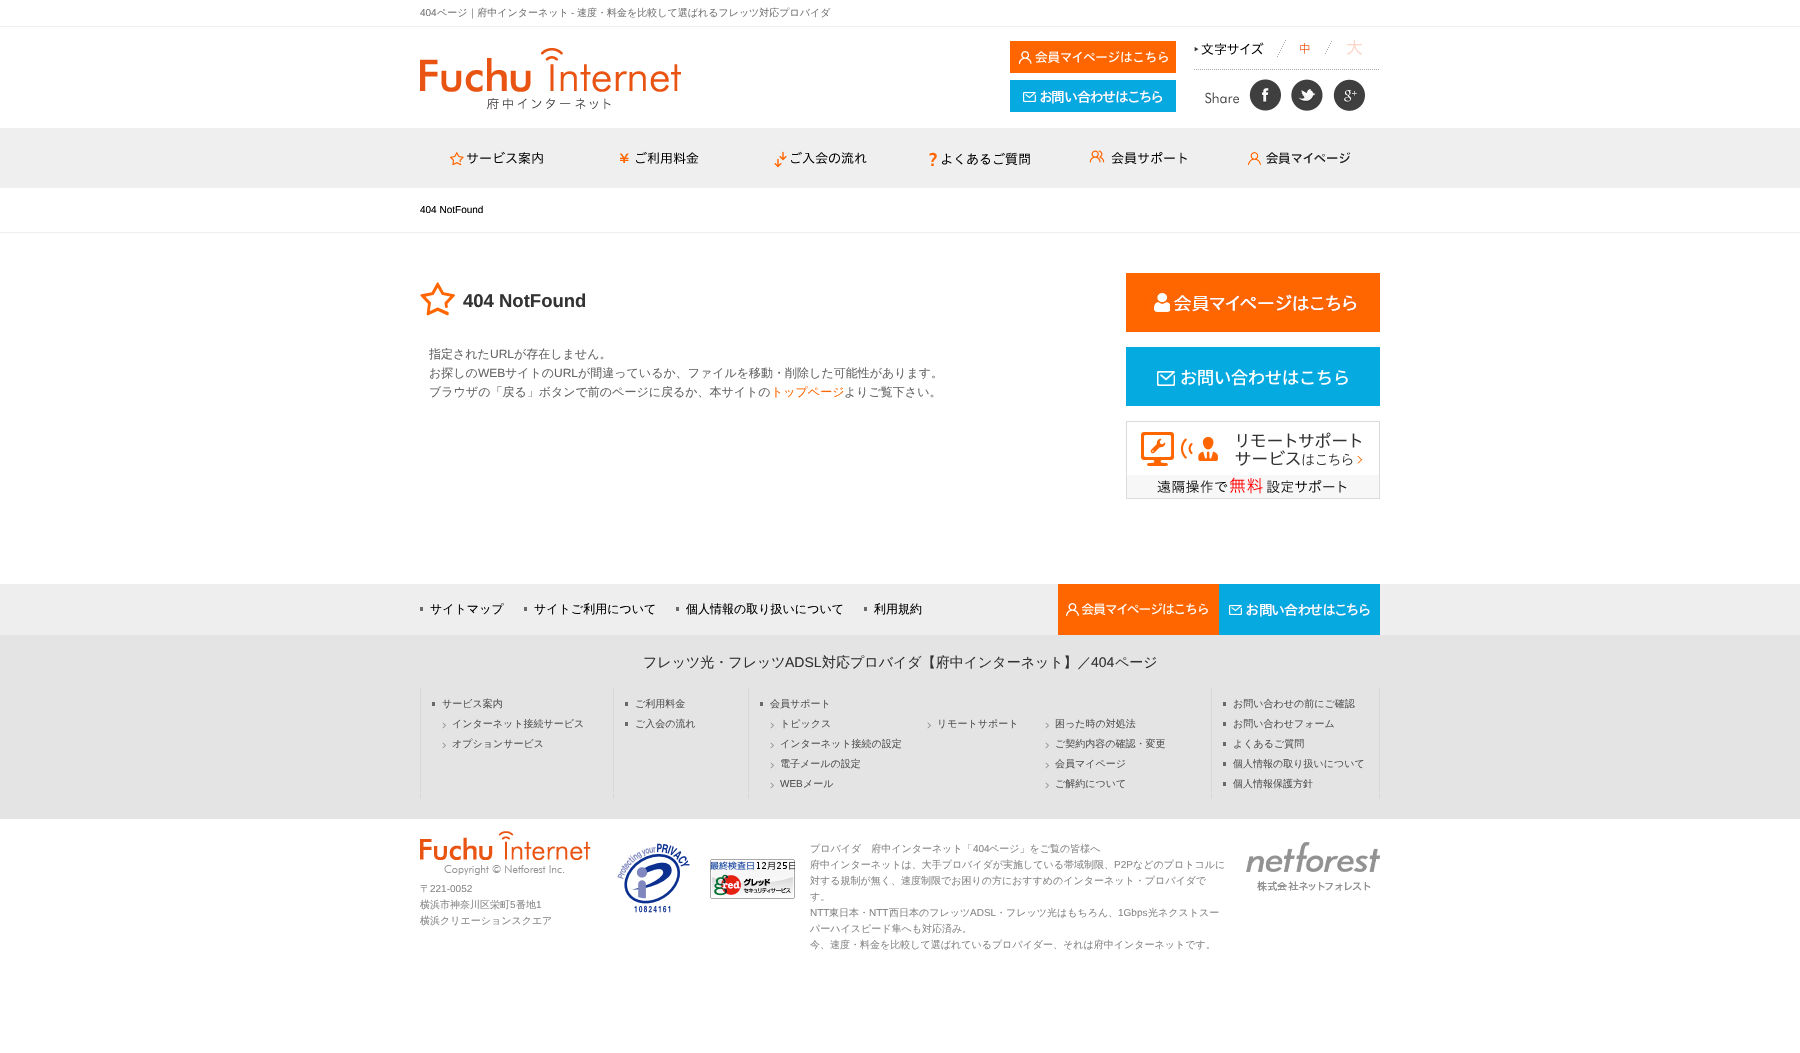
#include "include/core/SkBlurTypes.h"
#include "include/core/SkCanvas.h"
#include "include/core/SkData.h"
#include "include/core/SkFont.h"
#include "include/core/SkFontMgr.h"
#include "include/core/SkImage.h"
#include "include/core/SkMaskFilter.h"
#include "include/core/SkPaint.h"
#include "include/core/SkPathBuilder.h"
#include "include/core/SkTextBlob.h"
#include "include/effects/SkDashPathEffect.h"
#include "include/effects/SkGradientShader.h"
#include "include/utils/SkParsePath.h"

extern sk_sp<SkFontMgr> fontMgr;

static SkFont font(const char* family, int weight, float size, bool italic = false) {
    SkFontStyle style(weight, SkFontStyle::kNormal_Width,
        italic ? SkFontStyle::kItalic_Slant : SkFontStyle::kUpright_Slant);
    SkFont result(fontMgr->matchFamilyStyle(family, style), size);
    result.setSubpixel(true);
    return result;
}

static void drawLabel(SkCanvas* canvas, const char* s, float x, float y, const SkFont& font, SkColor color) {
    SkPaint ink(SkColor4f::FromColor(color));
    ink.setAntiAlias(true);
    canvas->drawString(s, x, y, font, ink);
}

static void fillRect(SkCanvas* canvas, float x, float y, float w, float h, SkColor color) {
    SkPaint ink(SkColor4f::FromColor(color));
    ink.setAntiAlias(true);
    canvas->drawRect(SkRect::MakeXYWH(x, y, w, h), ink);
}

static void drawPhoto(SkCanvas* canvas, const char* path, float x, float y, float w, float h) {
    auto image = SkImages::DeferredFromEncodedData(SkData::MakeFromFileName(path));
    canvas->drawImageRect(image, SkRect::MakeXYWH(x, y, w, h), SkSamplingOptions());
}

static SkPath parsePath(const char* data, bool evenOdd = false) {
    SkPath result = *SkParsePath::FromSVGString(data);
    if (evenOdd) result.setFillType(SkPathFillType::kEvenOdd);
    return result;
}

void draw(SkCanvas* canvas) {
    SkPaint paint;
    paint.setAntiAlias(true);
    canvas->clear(0xFFFFFFFF);
    fillRect(canvas, 0, 26, 1800, 1, 0xFFEFEEEF);
    SkFont font1 = font("Liberation Sans", 400, 10);
    drawLabel(canvas, "404", 420, 16, font1, 0xFF777777);
    SkFont font2 = font("WenQuanYi Zen Hei", 500, 10);
    drawLabel(canvas, "ページ｜府中インターネット", 437, 16, font2, 0xFF777777);
    drawLabel(canvas, "-", 571, 16, font1, 0xFF777777);
    drawLabel(canvas, "速度・料金を比較して選ばれるフレッツ対応プロバイダ", 577, 16, font2, 0xFF777777);
    drawPhoto(canvas, "assets/img1.png", 420, 48, 261, 62);
    drawPhoto(canvas, "assets/img2.png", 1010, 41, 166, 32);
    drawPhoto(canvas, "assets/img3.png", 1010, 80, 166, 32);
    drawPhoto(canvas, "assets/img4.png", 1277, 40, 9, 17);
    drawPhoto(canvas, "assets/img5.png", 1194, 42, 70, 13);
    drawPhoto(canvas, "assets/img6.png", 1325, 41, 7, 13);
    drawPhoto(canvas, "assets/img7.png", 1300, 43, 10, 11);
    drawPhoto(canvas, "assets/img8.png", 1347, 40, 15, 15);
    paint.setStroke(true);
    paint.setStrokeWidth(1);
    paint.setColor(0xFFAAAAAA);
    paint.setPathEffect(SkDashPathEffect::Make({{1, 1}}, 0));
    canvas->drawPath(parsePath("M1194 69.5H1380"), paint);
    paint.setPathEffect(nullptr);
    drawPhoto(canvas, "assets/img9.png", 1205, 92, 34, 12);
    drawPhoto(canvas, "assets/img10.png", 1249, 79, 32, 32);
    drawPhoto(canvas, "assets/img11.png", 1291, 79, 32, 32);
    drawPhoto(canvas, "assets/img12.png", 1333, 79, 32, 32);
    fillRect(canvas, 0, 128, 1800, 60, 0xFFEFEFEF);
    drawPhoto(canvas, "assets/img13.png", 420, 128, 160, 60);
    drawPhoto(canvas, "assets/img14.png", 580, 128, 160, 60);
    drawPhoto(canvas, "assets/img15.png", 740, 128, 160, 60);
    drawPhoto(canvas, "assets/img16.png", 900, 128, 160, 60);
    drawPhoto(canvas, "assets/img17.png", 1060, 128, 160, 60);
    drawPhoto(canvas, "assets/img18.png", 1220, 128, 160, 60);
    fillRect(canvas, 0, 232, 1800, 1, 0xFFEEEEEE);
    drawLabel(canvas, "404 NotFound", 420, 213, font1, 0xFF000000);
    drawPhoto(canvas, "assets/img19.png", 420, 282, 35, 34);
    SkFont font3 = font("Liberation Sans", 700, 18.5f);
    drawLabel(canvas, "404 NotFound", 463, 307, font3, 0xFF333333);
    SkFont font4 = font("WenQuanYi Zen Hei", 500, 12);
    drawLabel(canvas, "指定された", 429, 358, font4, 0xFF666666);
    SkFont font5 = font("Liberation Sans", 400, 12);
    drawLabel(canvas, "URL", 490, 358, font5, 0xFF666666);
    drawLabel(canvas, "が存在しません。", 514, 358, font4, 0xFF666666);
    drawLabel(canvas, "お探しの", 429, 377, font4, 0xFF666666);
    drawLabel(canvas, "WEB", 478, 377, font5, 0xFF666666);
    drawLabel(canvas, "サイトの", 505, 377, font4, 0xFF666666);
    drawLabel(canvas, "URL", 554, 377, font5, 0xFF666666);
    drawLabel(canvas, "が間違っているか、ファイルを移動・削除した可能性があります。", 578, 377, font4, 0xFF666666);
    drawLabel(canvas, "ブラウザの「戻る」ボタンで前のページに戻るか、本サイトの", 429, 396, font4, 0xFF666666);
    drawLabel(canvas, "トップページ", 771, 396, font4, 0xFFFF6600);
    drawLabel(canvas, "よりご覧下さい。", 844, 396, font4, 0xFF666666);
    drawPhoto(canvas, "assets/img20.png", 1126, 273, 254, 59);
    drawPhoto(canvas, "assets/img21.png", 1126, 347, 254, 59);
    drawPhoto(canvas, "assets/img22.png", 1126, 421, 254, 78);
    fillRect(canvas, 0, 584, 1800, 51, 0xFFEEEEEE);
    drawLabel(canvas, "サイトマップ", 430, 613, font4, 0xFF000000);
    fillRect(canvas, 420, 607, 3, 4, 0xFF696969);
    drawLabel(canvas, "サイトご利用について", 534, 613, font4, 0xFF000000);
    fillRect(canvas, 524, 607, 3, 4, 0xFF696969);
    drawLabel(canvas, "個人情報の取り扱いについて", 686, 613, font4, 0xFF000000);
    fillRect(canvas, 676, 607, 3, 4, 0xFF696969);
    drawLabel(canvas, "利用規約", 874, 613, font4, 0xFF000000);
    fillRect(canvas, 864, 607, 3, 4, 0xFF696969);
    drawPhoto(canvas, "assets/img23.png", 1058, 584, 161, 51);
    drawPhoto(canvas, "assets/img24.png", 1219, 584, 161, 51);
    fillRect(canvas, 0, 635, 1800, 184, 0xFFE4E4E4);
    SkFont font6 = font("WenQuanYi Zen Hei", 500, 14);
    drawLabel(canvas, "フレッツ光・フレッツ", 643, 667, font6, 0xFF333333);
    SkFont font7 = font("Liberation Sans", 400, 14);
    drawLabel(canvas, "ADSL", 785, 667, font7, 0xFF333333);
    drawLabel(canvas, "対応プロバイダ【府中インターネット】／", 822, 667, font6, 0xFF333333);
    drawLabel(canvas, "404", 1091, 667, font7, 0xFF333333);
    drawLabel(canvas, "ページ", 1115, 667, font6, 0xFF333333);
    paint.setColor(0xFFCCCCCC);
    paint.setPathEffect(SkDashPathEffect::Make({{1, 1}}, 0));
    canvas->drawPath(parsePath("M420.5 689V799"), paint);
    paint.setPathEffect(nullptr);
    fillRect(canvas, 432, 702, 3, 4, 0xFF696969);
    drawLabel(canvas, "サービス案内", 442, 707, font2, 0xFF555555);
    drawPhoto(canvas, "assets/img25.png", 442, 722, 4, 7);
    drawLabel(canvas, "インターネット接続サービス", 452, 727, font2, 0xFF555555);
    drawPhoto(canvas, "assets/img25.png", 442, 742, 4, 7);
    drawLabel(canvas, "オプションサービス", 452, 747, font2, 0xFF555555);
    paint.setPathEffect(SkDashPathEffect::Make({{1, 1}}, 0));
    canvas->drawPath(parsePath("M613.5 689V799"), paint);
    paint.setPathEffect(nullptr);
    fillRect(canvas, 625, 702, 3, 4, 0xFF696969);
    drawLabel(canvas, "ご利用料金", 635, 707, font2, 0xFF555555);
    fillRect(canvas, 625, 722, 3, 4, 0xFF696969);
    drawLabel(canvas, "ご入会の流れ", 635, 727, font2, 0xFF555555);
    paint.setPathEffect(SkDashPathEffect::Make({{1, 1}}, 0));
    canvas->drawPath(parsePath("M748.5 689V799"), paint);
    paint.setPathEffect(nullptr);
    fillRect(canvas, 760, 702, 3, 4, 0xFF696969);
    drawLabel(canvas, "会員サポート", 770, 707, font2, 0xFF555555);
    drawPhoto(canvas, "assets/img25.png", 770, 722, 4, 7);
    drawLabel(canvas, "トピックス", 780, 727, font2, 0xFF555555);
    drawPhoto(canvas, "assets/img25.png", 770, 742, 4, 7);
    drawLabel(canvas, "インターネット接続の設定", 780, 747, font2, 0xFF555555);
    drawPhoto(canvas, "assets/img25.png", 770, 762, 4, 7);
    drawLabel(canvas, "電子メールの設定", 780, 767, font2, 0xFF555555);
    drawPhoto(canvas, "assets/img25.png", 770, 782, 4, 7);
    drawLabel(canvas, "WEB", 780, 787, font1, 0xFF555555);
    drawLabel(canvas, "メール", 803, 787, font2, 0xFF555555);
    drawPhoto(canvas, "assets/img25.png", 927, 722, 4, 7);
    drawLabel(canvas, "リモートサポート", 937, 727, font2, 0xFF555555);
    drawPhoto(canvas, "assets/img25.png", 1045, 722, 4, 7);
    drawLabel(canvas, "困った時の対処法", 1055, 727, font2, 0xFF555555);
    drawPhoto(canvas, "assets/img25.png", 1045, 742, 4, 7);
    drawLabel(canvas, "ご契約内容の確認・変更", 1055, 747, font2, 0xFF555555);
    drawPhoto(canvas, "assets/img25.png", 1045, 762, 4, 7);
    drawLabel(canvas, "会員マイページ", 1055, 767, font2, 0xFF555555);
    drawPhoto(canvas, "assets/img25.png", 1045, 782, 4, 7);
    drawLabel(canvas, "ご解約について", 1055, 787, font2, 0xFF555555);
    paint.setPathEffect(SkDashPathEffect::Make({{1, 1}}, 0));
    canvas->drawPath(parsePath("M1379.5 689V799"), paint);
    paint.setPathEffect(nullptr);
    paint.setPathEffect(SkDashPathEffect::Make({{1, 1}}, 0));
    canvas->drawPath(parsePath("M1211.5 689V799"), paint);
    paint.setPathEffect(nullptr);
    fillRect(canvas, 1223, 702, 3, 4, 0xFF696969);
    drawLabel(canvas, "お問い合わせの前にご確認", 1233, 707, font2, 0xFF555555);
    fillRect(canvas, 1223, 722, 3, 4, 0xFF696969);
    drawLabel(canvas, "お問い合わせフォーム", 1233, 727, font2, 0xFF555555);
    fillRect(canvas, 1223, 742, 3, 4, 0xFF696969);
    drawLabel(canvas, "よくあるご質問", 1233, 747, font2, 0xFF555555);
    fillRect(canvas, 1223, 762, 3, 4, 0xFF696969);
    drawLabel(canvas, "個人情報の取り扱いについて", 1233, 767, font2, 0xFF555555);
    fillRect(canvas, 1223, 782, 3, 4, 0xFF696969);
    drawLabel(canvas, "個人情報保護方針", 1233, 787, font2, 0xFF555555);
    drawPhoto(canvas, "assets/img26.png", 420, 831, 171, 29);
    drawPhoto(canvas, "assets/img27.png", 444, 865, 121, 10);
    drawLabel(canvas, "〒", 420, 892, font2, 0xFF888888);
    drawLabel(canvas, "221-0052", 430, 892, font1, 0xFF888888);
    drawLabel(canvas, "横浜市神奈川区栄町", 420, 908, font2, 0xFF888888);
    drawLabel(canvas, "5", 510, 908, font1, 0xFF888888);
    drawLabel(canvas, "番地", 516, 908, font2, 0xFF888888);
    drawLabel(canvas, "1", 536, 908, font1, 0xFF888888);
    drawLabel(canvas, "横浜クリエーションスクエア", 420, 924, font2, 0xFF888888);
    drawPhoto(canvas, "assets/img28.png", 617, 843, 73, 70);
    drawPhoto(canvas, "assets/img29.png", 710, 859, 85, 40);
    drawLabel(canvas, "プロバイダ　府中インターネット「", 810, 852, font2, 0xFF888888);
    drawLabel(canvas, "404", 973, 852, font1, 0xFF888888);
    drawLabel(canvas, "ページ」をご覧の皆様へ", 989, 852, font2, 0xFF888888);
    drawLabel(canvas, "府中インターネットは、大手プロバイダが実施している帯域制限、", 810, 868, font2, 0xFF888888);
    drawLabel(canvas, "P2P", 1114, 868, font1, 0xFF888888);
    drawLabel(canvas, "などのプロトコルに", 1133, 868, font2, 0xFF888888);
    drawLabel(canvas, "対する規制が無く、速度制限でお困りの方におすすめのインターネット・プロバイダで", 810, 884, font2, 0xFF888888);
    drawLabel(canvas, "す。", 810, 900, font2, 0xFF888888);
    drawLabel(canvas, "NTT", 810, 916, font1, 0xFF888888);
    drawLabel(canvas, "東日本・", 829, 916, font2, 0xFF888888);
    drawLabel(canvas, "NTT", 869, 916, font1, 0xFF888888);
    drawLabel(canvas, "西日本のフレッツ", 889, 916, font2, 0xFF888888);
    drawLabel(canvas, "ADSL", 970, 916, font1, 0xFF888888);
    drawLabel(canvas, "・フレッツ光はもちろん、", 996, 916, font2, 0xFF888888);
    drawLabel(canvas, "1Gbps", 1118, 916, font1, 0xFF888888);
    drawLabel(canvas, "光ネクストスー", 1148, 916, font2, 0xFF888888);
    drawLabel(canvas, "パーハイスピード隼へも対応済み。", 810, 932, font2, 0xFF888888);
    drawLabel(canvas, "今、速度・料金を比較して選ばれているプロバイダー、それは府中インターネットです。", 810, 948, font2, 0xFF888888);
    drawPhoto(canvas, "assets/img30.png", 1246, 842, 134, 50);
}
